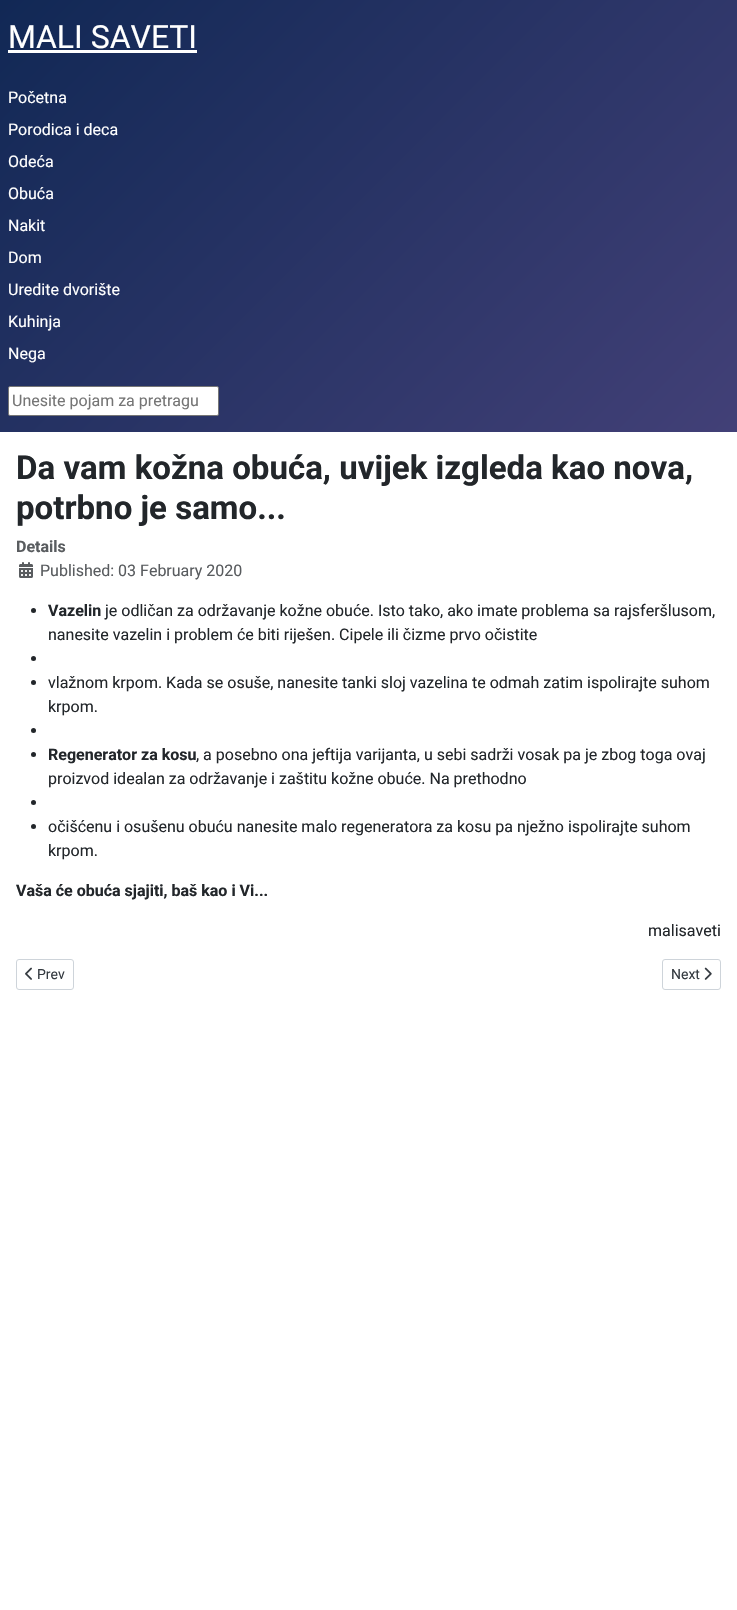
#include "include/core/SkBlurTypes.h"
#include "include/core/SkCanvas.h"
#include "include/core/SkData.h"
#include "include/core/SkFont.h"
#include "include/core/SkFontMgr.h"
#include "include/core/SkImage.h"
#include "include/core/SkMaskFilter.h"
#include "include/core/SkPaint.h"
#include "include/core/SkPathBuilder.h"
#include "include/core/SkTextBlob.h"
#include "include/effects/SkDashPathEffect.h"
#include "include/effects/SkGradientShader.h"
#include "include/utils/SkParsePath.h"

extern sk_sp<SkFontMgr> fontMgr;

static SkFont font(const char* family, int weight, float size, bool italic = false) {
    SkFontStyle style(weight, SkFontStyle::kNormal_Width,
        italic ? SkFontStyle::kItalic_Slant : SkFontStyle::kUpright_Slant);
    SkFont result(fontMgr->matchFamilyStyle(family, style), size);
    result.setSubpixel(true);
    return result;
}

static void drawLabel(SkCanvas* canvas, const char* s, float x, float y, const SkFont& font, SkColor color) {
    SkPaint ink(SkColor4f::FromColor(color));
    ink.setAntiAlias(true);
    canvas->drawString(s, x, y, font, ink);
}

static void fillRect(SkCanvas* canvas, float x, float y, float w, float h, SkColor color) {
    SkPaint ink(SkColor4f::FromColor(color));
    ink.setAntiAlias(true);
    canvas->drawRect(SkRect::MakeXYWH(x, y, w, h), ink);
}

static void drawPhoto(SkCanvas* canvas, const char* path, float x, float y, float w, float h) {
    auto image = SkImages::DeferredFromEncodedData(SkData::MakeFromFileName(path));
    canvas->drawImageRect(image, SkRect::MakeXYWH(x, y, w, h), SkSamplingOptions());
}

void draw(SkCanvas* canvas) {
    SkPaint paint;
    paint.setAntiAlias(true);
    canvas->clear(0xFFFFFFFF);
    {
        const SkColor colors[] = {0xFF112855, 0xFF424077};
        const float stops[] = {0, 1};
        const SkPoint ends[] = {{76, -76}, {661, 508}};
        paint.setShader(SkGradientShader::MakeLinear(ends, colors, stops, 2, SkTileMode::kClamp));
        paint.setAlpha(255);
    }
    canvas->drawRect(SkRect::MakeXYWH(0, 0, 737, 432), paint);
    SkFont font1 = font("Roboto", 400, 32);
    drawLabel(canvas, "MALI SAVETI", 8, 48, font1, 0xFFFFFFFF);
    fillRect(canvas, 8, 50, 189, 3, 0xFFFFFFFF);
    SkFont font2 = font("Roboto", 400, 16);
    drawLabel(canvas, "Početna", 8, 103, font2, 0xFFFFFFFF);
    drawLabel(canvas, "Porodica i deca", 8, 135, font2, 0xFFFFFFFF);
    drawLabel(canvas, "Odeća", 8, 167, font2, 0xFFFFFFFF);
    drawLabel(canvas, "Obuća", 8, 199, font2, 0xFFFFFFFF);
    drawLabel(canvas, "Nakit", 8, 231, font2, 0xFFFFFFFF);
    drawLabel(canvas, "Dom", 8, 263, font2, 0xFFFFFFFF);
    drawLabel(canvas, "Uredite dvorište", 8, 295, font2, 0xFFFFFFFF);
    drawLabel(canvas, "Kuhinja", 8, 327, font2, 0xFFFFFFFF);
    drawLabel(canvas, "Nega", 8, 359, font2, 0xFFFFFFFF);
    paint.setShader(nullptr);
    paint.setColor(0xFFFFFFFF);
    canvas->drawRoundRect(SkRect::MakeXYWH(8.5f, 386.5f, 210, 29), 1.5f, 1.5f, paint);
    paint.setStroke(true);
    paint.setStrokeWidth(1);
    paint.setColor(0xFF767676);
    canvas->drawRoundRect(SkRect::MakeXYWH(8.5f, 386.5f, 210, 29), 1.5f, 1.5f, paint);
    drawLabel(canvas, "Unesite pojam za pretragu", 12, 406, font2, 0xFF757575);
    SkFont font3 = font("Roboto", 700, 33.05f);
    drawLabel(canvas, "Da vam kožna obuća, uvijek izgleda kao nova,", 16, 479, font3, 0xFF22262A);
    drawLabel(canvas, "potrbno je samo...", 16, 519, font3, 0xFF22262A);
    SkFont font4 = font("Roboto", 700, 16);
    drawLabel(canvas, "Details", 16, 552, font4, 0xFF595C5F);
    drawPhoto(canvas, "assets/img1.png", 19, 562, 14, 16);
    drawLabel(canvas, "Published: 03 February 2020", 40, 576, font2, 0xFF595C5F);
    paint.setStroke(false);
    paint.setColor(0xFF22262A);
    canvas->drawCircle(33.5f, 610.5f, 2.5f, paint);
    drawLabel(canvas, "Vazelin", 48, 616, font4, 0xFF22262A);
    drawLabel(canvas, "je odličan za održavanje kožne obuće. Isto tako, ako imate problema sa rajsferšlusom,", 105, 616, font2, 0xFF22262A);
    drawLabel(canvas, "nanesite vazelin i problem će biti riješen. Cipele ili čizme prvo očistite", 48, 640, font2, 0xFF22262A);
    canvas->drawCircle(33.5f, 658.5f, 2.5f, paint);
    canvas->drawCircle(33.5f, 682.5f, 2.5f, paint);
    drawLabel(canvas, "vlažnom krpom. Kada se osuše, nanesite tanki sloj vazelina te odmah zatim ispolirajte suhom", 48, 688, font2, 0xFF22262A);
    drawLabel(canvas, "krpom.", 48, 712, font2, 0xFF22262A);
    canvas->drawCircle(33.5f, 730.5f, 2.5f, paint);
    canvas->drawCircle(33.5f, 754.5f, 2.5f, paint);
    drawLabel(canvas, "Regenerator za kosu", 48, 760, font4, 0xFF22262A);
    drawLabel(canvas, ", a posebno ona jeftija varijanta, u sebi sadrži vosak pa je zbog toga ovaj", 196, 760, font2, 0xFF22262A);
    drawLabel(canvas, "proizvod idealan za održavanje i zaštitu kožne obuće. Na prethodno", 48, 784, font2, 0xFF22262A);
    canvas->drawCircle(33.5f, 802.5f, 2.5f, paint);
    canvas->drawCircle(33.5f, 826.5f, 2.5f, paint);
    drawLabel(canvas, "očišćenu i osušenu obuću nanesite malo regeneratora za kosu pa nježno ispolirajte suhom", 48, 832, font2, 0xFF22262A);
    drawLabel(canvas, "krpom.", 48, 856, font2, 0xFF22262A);
    drawLabel(canvas, "Vaša će obuća sjajiti, baš kao i Vi...", 16, 896, font4, 0xFF22262A);
    drawLabel(canvas, "malisaveti", 648, 936, font2, 0xFF22262A);
    paint.setStroke(true);
    paint.setColor(0xFFCED4DA);
    canvas->drawRoundRect(SkRect::MakeXYWH(16.5f, 959.5f, 57, 30), 2.5f, 2.5f, paint);
    drawPhoto(canvas, "assets/img2.png", 25, 967, 7, 13);
    SkFont font5 = font("Roboto", 400, 14);
    drawLabel(canvas, "Prev", 37, 979, font5, 0xFF353B41);
    canvas->drawRoundRect(SkRect::MakeXYWH(662.5f, 959.5f, 58, 30), 2.5f, 2.5f, paint);
    drawLabel(canvas, "Next", 671, 979, font5, 0xFF353B41);
    drawPhoto(canvas, "assets/img3.png", 704, 967, 8, 13);
}
